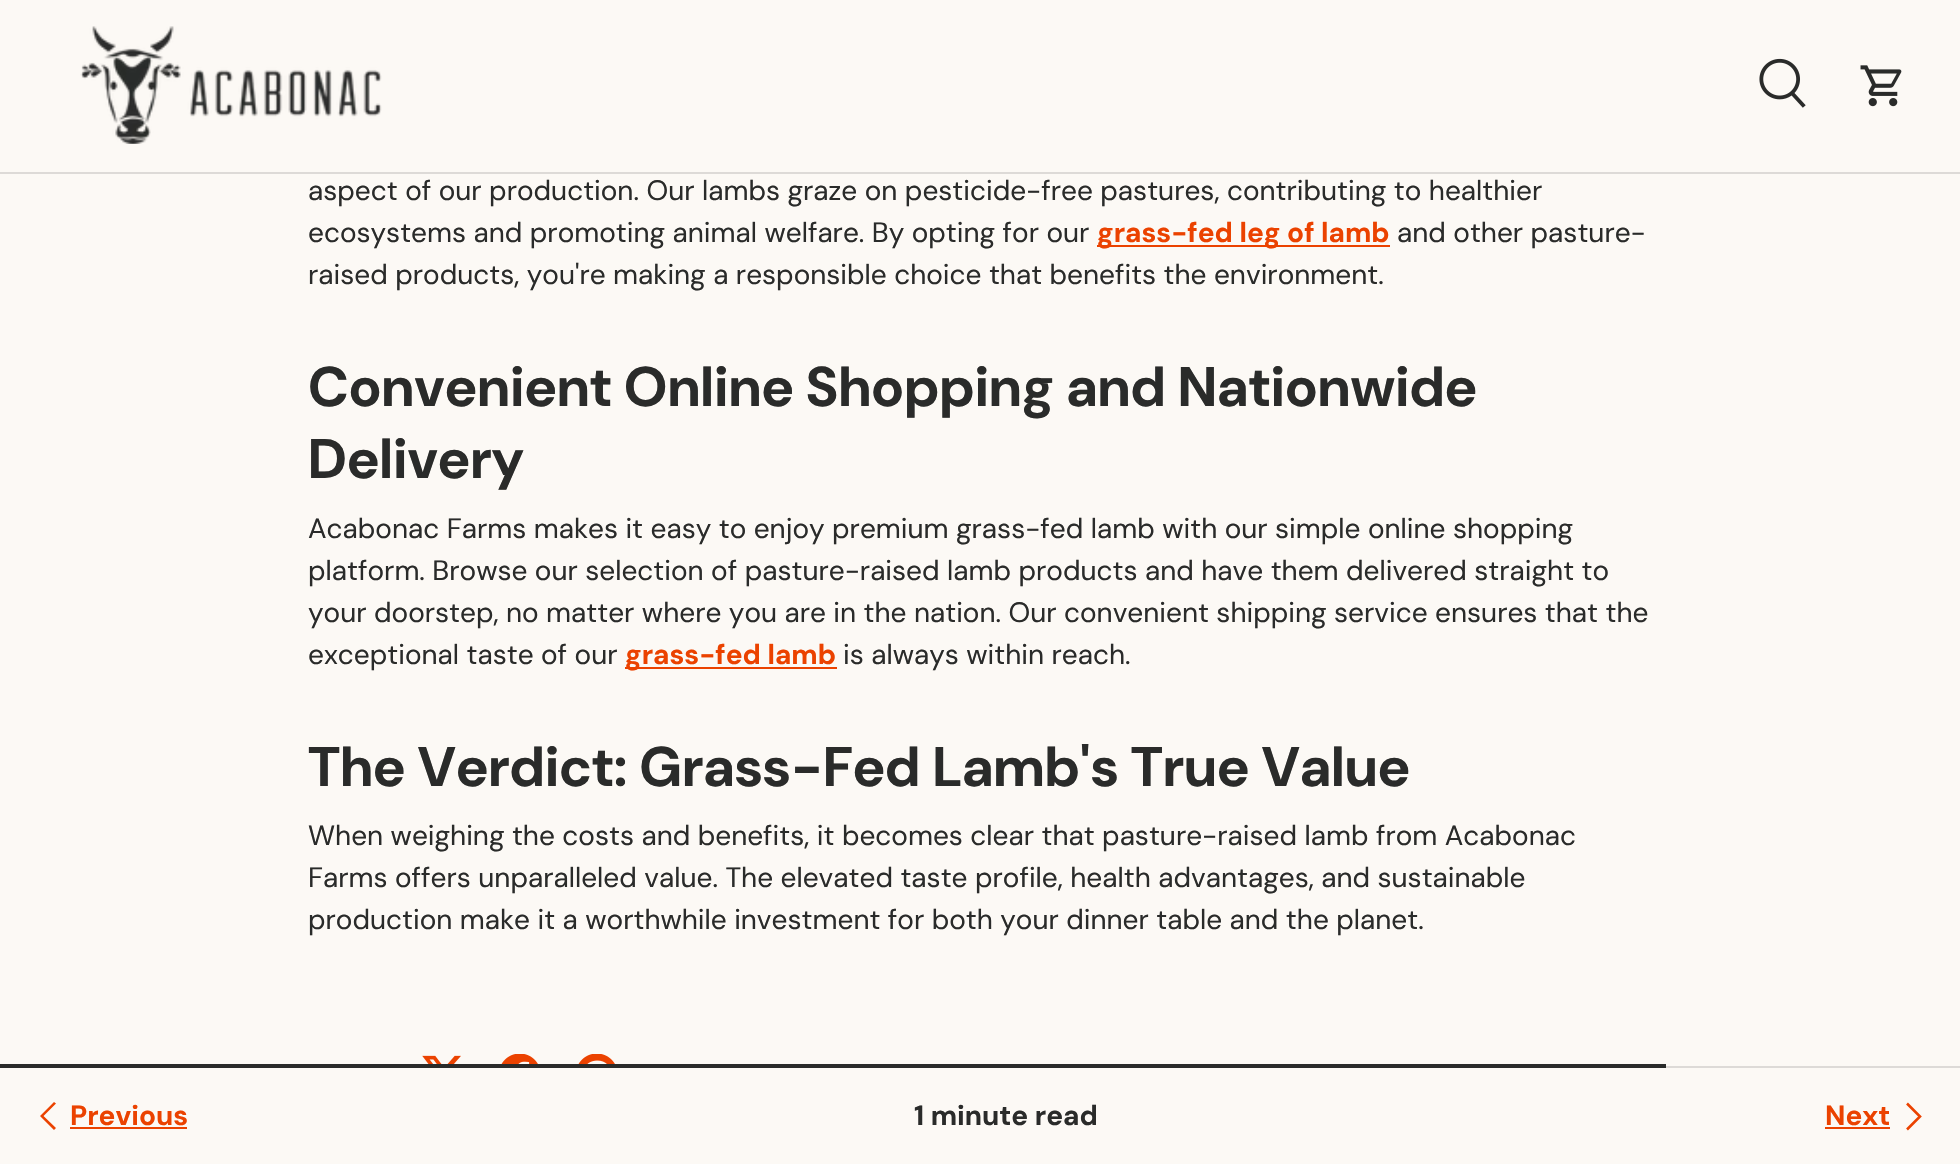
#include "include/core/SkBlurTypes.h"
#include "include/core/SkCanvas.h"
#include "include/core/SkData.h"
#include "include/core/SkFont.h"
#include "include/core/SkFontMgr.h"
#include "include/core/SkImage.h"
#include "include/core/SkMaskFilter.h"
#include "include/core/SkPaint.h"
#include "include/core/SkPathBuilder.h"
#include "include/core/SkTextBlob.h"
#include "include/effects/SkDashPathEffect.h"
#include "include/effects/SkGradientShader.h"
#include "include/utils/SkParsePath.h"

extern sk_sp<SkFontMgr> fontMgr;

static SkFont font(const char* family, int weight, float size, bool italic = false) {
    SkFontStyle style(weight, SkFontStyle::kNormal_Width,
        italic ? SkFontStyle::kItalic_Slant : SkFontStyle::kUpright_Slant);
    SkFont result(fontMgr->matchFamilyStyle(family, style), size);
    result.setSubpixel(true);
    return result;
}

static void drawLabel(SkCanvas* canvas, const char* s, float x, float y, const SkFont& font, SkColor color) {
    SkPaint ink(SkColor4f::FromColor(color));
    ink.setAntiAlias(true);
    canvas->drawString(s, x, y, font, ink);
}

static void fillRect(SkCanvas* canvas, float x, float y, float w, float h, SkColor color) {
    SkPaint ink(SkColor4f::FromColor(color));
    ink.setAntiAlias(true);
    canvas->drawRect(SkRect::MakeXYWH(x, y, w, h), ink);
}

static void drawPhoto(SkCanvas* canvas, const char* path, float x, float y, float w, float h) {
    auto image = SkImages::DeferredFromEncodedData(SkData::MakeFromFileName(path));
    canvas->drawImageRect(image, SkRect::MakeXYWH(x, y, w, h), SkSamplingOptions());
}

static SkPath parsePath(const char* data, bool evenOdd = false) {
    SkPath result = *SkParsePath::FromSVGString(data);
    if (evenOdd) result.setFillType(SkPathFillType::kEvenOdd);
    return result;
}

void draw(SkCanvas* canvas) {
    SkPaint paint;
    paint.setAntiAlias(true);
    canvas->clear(0xFFFCF9F5);
    fillRect(canvas, 0, 172, 1960, 2, 0xFFDDDAD7);
    drawPhoto(canvas, "assets/img1.png", 80, 26, 302, 118);
    drawPhoto(canvas, "assets/img2.png", 1759, 58, 47, 50);
    drawPhoto(canvas, "assets/img3.png", 1860, 65, 42, 42);
    SkFont font1 = font("DM Sans", 400, 28);
    drawLabel(canvas, "aspect of our production. Our lambs graze on pesticide-free pastures, contributing to healthier", 308, 200, font1, 0xFF2A2B2A);
    drawLabel(canvas, "ecosystems and promoting animal welfare. By opting for our", 308, 242, font1, 0xFF2A2B2A);
    fillRect(canvas, 1097, 245, 293, 2, 0xFFEB4200);
    SkFont font2 = font("DM Sans", 700, 28);
    drawLabel(canvas, "grass-fed leg of lamb", 1097, 242, font2, 0xFFEB4200);
    drawLabel(canvas, "and other pasture-", 1397, 242, font1, 0xFF2A2B2A);
    drawLabel(canvas, "raised products, you're making a responsible choice that benefits the environment.", 308, 284, font1, 0xFF2A2B2A);
    SkFont font3 = font("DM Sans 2", 700, 55.75f);
    drawLabel(canvas, "Convenient Online Shopping and Nationwide", 308, 406, font3, 0xFF2A2B2A);
    drawLabel(canvas, "Delivery", 308, 478, font3, 0xFF2A2B2A);
    drawLabel(canvas, "Acabonac Farms makes it easy to enjoy premium grass-fed lamb with our simple online shopping", 308, 538, font1, 0xFF2A2B2A);
    drawLabel(canvas, "platform. Browse our selection of pasture-raised lamb products and have them delivered straight to", 308, 580, font1, 0xFF2A2B2A);
    drawLabel(canvas, "your doorstep, no matter where you are in the nation. Our convenient shipping service ensures that the", 308, 622, font1, 0xFF2A2B2A);
    drawLabel(canvas, "exceptional taste of our", 308, 664, font1, 0xFF2A2B2A);
    fillRect(canvas, 625, 667, 212, 2, 0xFFEB4200);
    drawLabel(canvas, "grass-fed lamb", 625, 664, font2, 0xFFEB4200);
    drawLabel(canvas, "is always within reach.", 843, 664, font1, 0xFF2A2B2A);
    drawLabel(canvas, "The Verdict: Grass-Fed Lamb's True Value", 308, 786, font3, 0xFF2A2B2A);
    drawLabel(canvas, "When weighing the costs and benefits, it becomes clear that pasture-raised lamb from Acabonac", 308, 845, font1, 0xFF2A2B2A);
    drawLabel(canvas, "Farms offers unparalleled value. The elevated taste profile, health advantages, and sustainable", 308, 887, font1, 0xFF2A2B2A);
    drawLabel(canvas, "production make it a worthwhile investment for both your dinner table and the planet.", 308, 929, font1, 0xFF2A2B2A);
    drawPhoto(canvas, "assets/img4.png", 422, 1055, 39, 9);
    drawPhoto(canvas, "assets/img5.png", 501, 1054, 37, 10);
    drawPhoto(canvas, "assets/img6.png", 578, 1054, 37, 10);
    fillRect(canvas, 1666, 1066, 294, 2, 0xFFDDDAD7);
    fillRect(canvas, 0, 1064, 1666, 4, 0xFF2A2B2A);
    paint.setColor(0xFFEB4200);
    canvas->drawPath(parsePath("M40 1116L54 1102L56 1103.5L43.5 1116L56 1128L54 1130Z"), paint);
    drawLabel(canvas, "Previous", 70, 1125, font2, 0xFFEB4200);
    fillRect(canvas, 70, 1127, 117, 2, 0xFFEB4200);
    drawLabel(canvas, "1 minute read", 914, 1125, font2, 0xFF2A2B2A);
    drawLabel(canvas, "Next", 1825, 1125, font2, 0xFFEB4200);
    fillRect(canvas, 1825, 1127, 65, 2, 0xFFEB4200);
    paint.setStroke(true);
    paint.setStrokeWidth(2.6f);
    canvas->drawPath(parsePath("M1907 1103.5L1920 1116.5L1907 1129.5"), paint);
}
